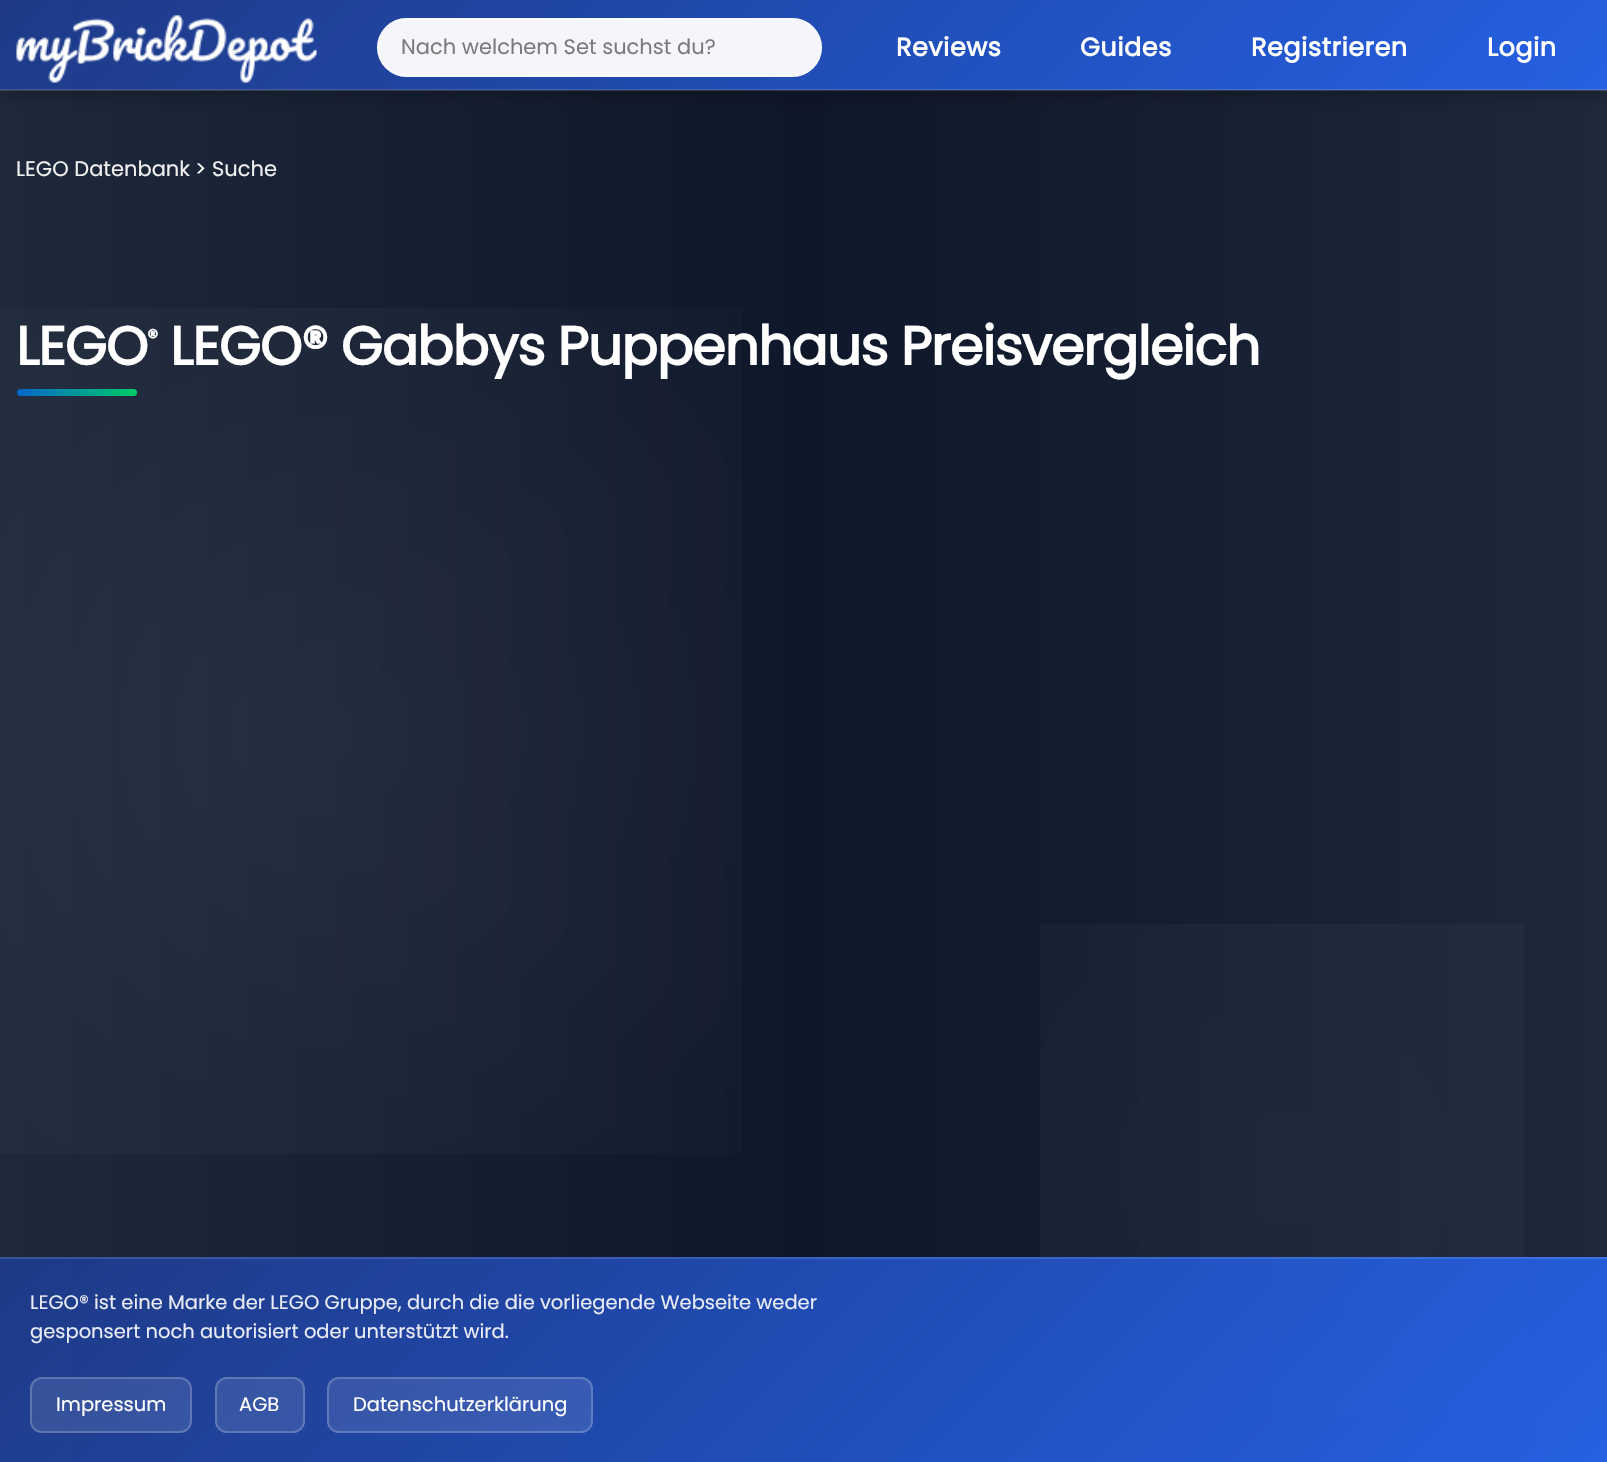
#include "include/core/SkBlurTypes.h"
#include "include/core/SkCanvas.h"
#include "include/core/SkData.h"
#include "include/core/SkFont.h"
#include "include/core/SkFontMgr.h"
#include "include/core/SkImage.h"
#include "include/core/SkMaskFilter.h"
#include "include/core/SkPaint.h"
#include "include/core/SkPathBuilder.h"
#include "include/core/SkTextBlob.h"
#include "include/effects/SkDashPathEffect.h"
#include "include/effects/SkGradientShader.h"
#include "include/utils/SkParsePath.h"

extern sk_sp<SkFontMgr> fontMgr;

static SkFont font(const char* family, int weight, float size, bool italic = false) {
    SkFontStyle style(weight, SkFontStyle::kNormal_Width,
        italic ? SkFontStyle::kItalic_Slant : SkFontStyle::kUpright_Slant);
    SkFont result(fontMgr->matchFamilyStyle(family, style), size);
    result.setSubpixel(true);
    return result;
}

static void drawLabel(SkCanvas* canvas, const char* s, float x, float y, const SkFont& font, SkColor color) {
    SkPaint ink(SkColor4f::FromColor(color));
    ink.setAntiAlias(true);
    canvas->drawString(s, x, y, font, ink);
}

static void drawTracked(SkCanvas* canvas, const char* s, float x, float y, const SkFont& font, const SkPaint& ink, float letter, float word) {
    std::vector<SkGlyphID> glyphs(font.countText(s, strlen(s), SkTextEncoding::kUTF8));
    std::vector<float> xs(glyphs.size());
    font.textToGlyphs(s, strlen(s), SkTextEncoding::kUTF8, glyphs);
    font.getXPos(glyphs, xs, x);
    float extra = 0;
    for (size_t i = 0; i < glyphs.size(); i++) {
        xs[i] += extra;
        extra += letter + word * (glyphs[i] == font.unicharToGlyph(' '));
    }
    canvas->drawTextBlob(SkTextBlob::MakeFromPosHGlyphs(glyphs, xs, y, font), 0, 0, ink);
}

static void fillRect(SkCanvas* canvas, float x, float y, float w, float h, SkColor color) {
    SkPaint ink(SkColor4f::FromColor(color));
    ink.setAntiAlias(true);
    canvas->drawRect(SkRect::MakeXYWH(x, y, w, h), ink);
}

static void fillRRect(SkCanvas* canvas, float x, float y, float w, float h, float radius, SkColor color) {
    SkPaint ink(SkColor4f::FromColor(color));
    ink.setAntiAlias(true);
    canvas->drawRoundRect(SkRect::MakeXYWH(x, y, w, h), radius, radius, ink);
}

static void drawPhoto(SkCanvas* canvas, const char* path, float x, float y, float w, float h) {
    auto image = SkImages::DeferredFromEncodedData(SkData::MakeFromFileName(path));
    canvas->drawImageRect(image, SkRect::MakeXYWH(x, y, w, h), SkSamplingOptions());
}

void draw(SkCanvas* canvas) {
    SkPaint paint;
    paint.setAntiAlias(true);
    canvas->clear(0xFFFFFFFF);
    {
        const SkColor colors[] = {0xFF1E293B, 0xFF0F172A, 0xFF1E293B};
        const float stops[] = {0, 0.5f, 1};
        const SkPoint ends[] = {{0, 731}, {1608, 731}};
        paint.setShader(SkGradientShader::MakeLinear(ends, colors, stops, 3, SkTileMode::kClamp));
        paint.setAlpha(255);
    }
    canvas->drawRect(SkRect::MakeXYWH(0, 0, 1607, 1462), paint);
    canvas->save();
    canvas->clipRect(SkRect::MakeXYWH(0, 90, 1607, 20));
    paint.setShader(nullptr);
    paint.setColor(0x4D000000);
    paint.setMaskFilter(SkMaskFilter::MakeBlur(kNormal_SkBlurStyle, 11));
    canvas->drawRect(SkRect::MakeXYWH(0, 3, 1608, 90), paint);
    paint.setMaskFilter(nullptr);
    canvas->restore();
    {
        const SkColor colors[] = {0xF21E3A8A, 0xF22563EB};
        const float stops[] = {0, 1};
        const SkPoint ends[] = {{380, -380}, {1228, 468}};
        paint.setShader(SkGradientShader::MakeLinear(ends, colors, stops, 2, SkTileMode::kClamp));
        paint.setAlpha(255);
    }
    canvas->drawRect(SkRect::MakeXYWH(0, 0, 1607, 89), paint);
    {
        const SkColor colors[] = {0xF21E3A8A, 0xF22563EB};
        const float stops[] = {0, 1};
        const SkPoint ends[] = {{380, -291}, {1228, 557}};
        paint.setShader(SkGradientShader::MakeLinear(ends, colors, stops, 2, SkTileMode::kClamp));
        paint.setAlpha(255);
    }
    canvas->drawRect(SkRect::MakeXYWH(0, 89, 1607, 1), paint);
    fillRect(canvas, 0, 89, 1607, 2, 0x26FFFFFF);
    drawPhoto(canvas, "assets/img1.png", 16, 15, 301, 68);
    fillRRect(canvas, 377, 18, 445, 59, 29.5f, 0xF2FFFFFF);
    paint.setStroke(true);
    paint.setStrokeWidth(2);
    paint.setShader(nullptr);
    paint.setColor(0x4DFFFFFF);
    canvas->drawRoundRect(SkRect::MakeXYWH(378, 19, 443, 57), 28.5f, 28.5f, paint);
    SkFont font1 = font("Poppins", 400, 21);
    drawLabel(canvas, "Nach welchem Set suchst du?", 401, 54, font1, 0xFF7A7B7D);
    SkFont font2 = font("Poppins", 700, 25.5f);
    paint.setStroke(false);
    paint.setColor(0xFFFFFFFF);
    drawTracked(canvas, "Reviews", 896, 56, font2, paint, 0.5f, 0);
    drawTracked(canvas, "Guides", 1080, 56, font2, paint, 0.5f, 0);
    drawTracked(canvas, "Registrieren", 1251, 56, font2, paint, 0.5f, 0);
    drawTracked(canvas, "Login", 1487, 56, font2, paint, 0.5f, 0);
    drawLabel(canvas, "LEGO Datenbank", 16, 176, font1, 0xFFF0F0F0);
    drawLabel(canvas, ">", 195, 176, font1, 0xFFFFFFFF);
    drawLabel(canvas, "Suche", 212, 176, font1, 0xFFF0F0F0);
    {
        const SkColor colors[] = {0x0DFFFFFF, 0x00FFFFFF};
        const float stops[] = {0, 0.5f};
        paint.setShader(SkGradientShader::MakeRadial({322, 731}, 1480, colors, stops, 2, SkTileMode::kClamp));
        paint.setAlpha(255);
    }
    canvas->drawRect(SkRect::MakeXYWH(0, 308, 742, 846), paint);
    SkFont font3 = font("Poppins", 700, 54);
    paint.setShader(nullptr);
    paint.setColor(0xFFFFFFFF);
    drawTracked(canvas, "LEGO", 16, 365, font3, paint, -1.1f, 0);
    SkFont font4 = font("Poppins", 700, 22);
    drawTracked(canvas, "®", 147, 345, font4, paint, -1.1f, 0);
    drawTracked(canvas, "LEGO® Gabbys Puppenhaus Preisvergleich", 170, 365, font3, paint, -1.1f, 0);
    {
        const SkColor colors[] = {0xFF0066CC, 0xFF00CC66};
        const float stops[] = {0, 1};
        const SkPoint ends[] = {{17, 392}, {137, 392}};
        paint.setShader(SkGradientShader::MakeLinear(ends, colors, stops, 2, SkTileMode::kClamp));
        paint.setAlpha(255);
    }
    canvas->drawRoundRect(SkRect::MakeXYWH(17, 389, 120, 7), 3.5f, 3.5f, paint);
    {
        const SkColor colors[] = {0x08FFFFFF, 0x00FFFFFF};
        const float stops[] = {0, 0.5f};
        paint.setShader(SkGradientShader::MakeRadial({1286, 1170}, 1739, colors, stops, 2, SkTileMode::kClamp));
        paint.setAlpha(255);
    }
    canvas->drawRect(SkRect::MakeXYWH(1040, 924, 484, 485), paint);
    {
        const SkColor colors[] = {0xF21E3A8A, 0xF22563EB};
        const float stops[] = {0, 1};
        const SkPoint ends[] = {{351, 704}, {1257, 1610}};
        paint.setShader(SkGradientShader::MakeLinear(ends, colors, stops, 2, SkTileMode::kClamp));
        paint.setAlpha(255);
    }
    canvas->drawRect(SkRect::MakeXYWH(0, 1257, 1607, 2), paint);
    {
        const SkColor colors[] = {0xF21E3A8A, 0xF22563EB};
        const float stops[] = {0, 1};
        const SkPoint ends[] = {{351, 908}, {1257, 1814}};
        paint.setShader(SkGradientShader::MakeLinear(ends, colors, stops, 2, SkTileMode::kClamp));
        paint.setAlpha(255);
    }
    canvas->drawRect(SkRect::MakeXYWH(0, 1259, 1607, 203), paint);
    fillRect(canvas, 0, 1257, 1607, 2, 0x1AFFFFFF);
    SkFont font5 = font("Poppins", 400, 19.5f);
    drawLabel(canvas, "LEGO® ist eine Marke der LEGO Gruppe, durch die die vorliegende Webseite weder", 30, 1309, font5, 0xFFE9ECF5);
    drawLabel(canvas, "gesponsert noch autorisiert oder unterstützt wird.", 30, 1338, font5, 0xFFE9ECF5);
    fillRRect(canvas, 30, 1377, 162, 56, 12, 0x1AFFFFFF);
    paint.setStroke(true);
    paint.setShader(nullptr);
    paint.setColor(0x33FFFFFF);
    canvas->drawRoundRect(SkRect::MakeXYWH(31, 1378, 160, 54), 11, 11, paint);
    drawLabel(canvas, "Impressum", 56, 1411, font5, 0xFFFFFFFF);
    fillRRect(canvas, 215, 1377, 90, 56, 12, 0x1AFFFFFF);
    canvas->drawRoundRect(SkRect::MakeXYWH(216, 1378, 88, 54), 11, 11, paint);
    drawLabel(canvas, "AGB", 239, 1411, font5, 0xFFFFFFFF);
    fillRRect(canvas, 327, 1377, 266, 56, 12, 0x1AFFFFFF);
    canvas->drawRoundRect(SkRect::MakeXYWH(328, 1378, 264, 54), 11, 11, paint);
    drawLabel(canvas, "Datenschutzerklärung", 353, 1411, font5, 0xFFFFFFFF);
}
